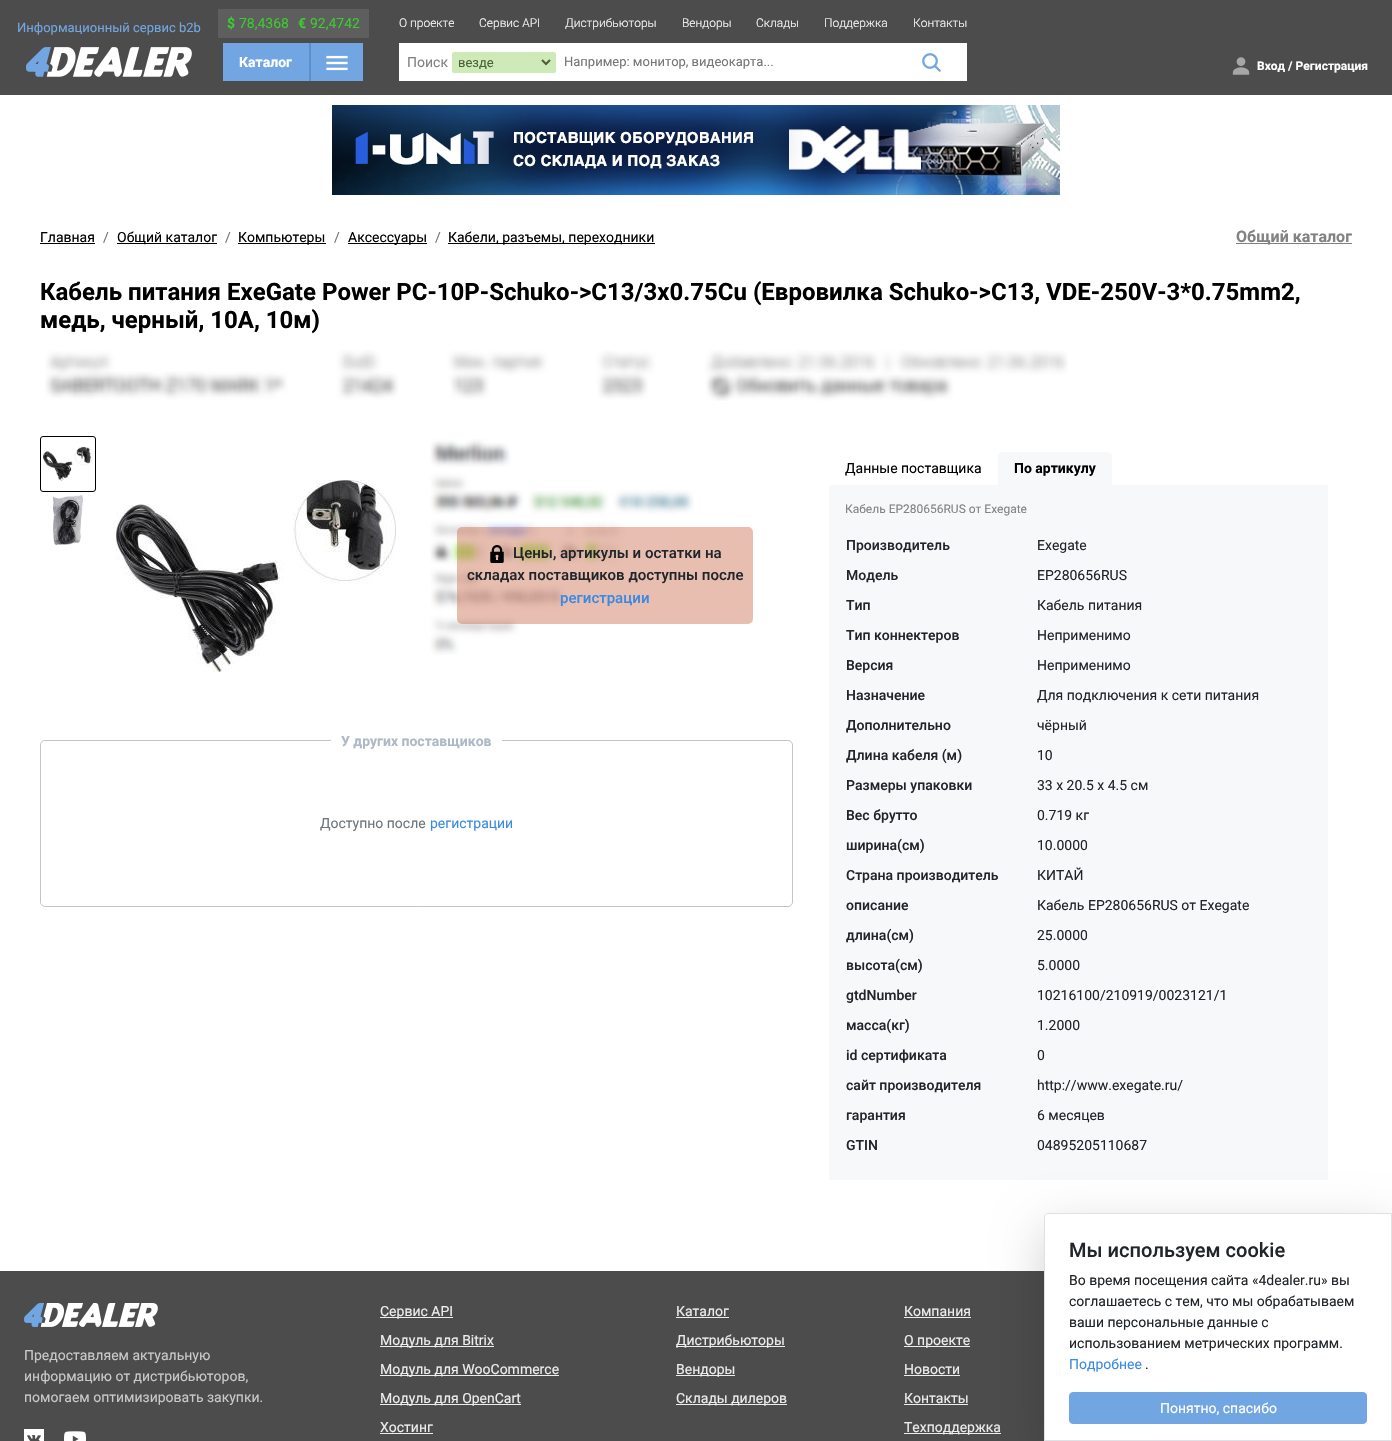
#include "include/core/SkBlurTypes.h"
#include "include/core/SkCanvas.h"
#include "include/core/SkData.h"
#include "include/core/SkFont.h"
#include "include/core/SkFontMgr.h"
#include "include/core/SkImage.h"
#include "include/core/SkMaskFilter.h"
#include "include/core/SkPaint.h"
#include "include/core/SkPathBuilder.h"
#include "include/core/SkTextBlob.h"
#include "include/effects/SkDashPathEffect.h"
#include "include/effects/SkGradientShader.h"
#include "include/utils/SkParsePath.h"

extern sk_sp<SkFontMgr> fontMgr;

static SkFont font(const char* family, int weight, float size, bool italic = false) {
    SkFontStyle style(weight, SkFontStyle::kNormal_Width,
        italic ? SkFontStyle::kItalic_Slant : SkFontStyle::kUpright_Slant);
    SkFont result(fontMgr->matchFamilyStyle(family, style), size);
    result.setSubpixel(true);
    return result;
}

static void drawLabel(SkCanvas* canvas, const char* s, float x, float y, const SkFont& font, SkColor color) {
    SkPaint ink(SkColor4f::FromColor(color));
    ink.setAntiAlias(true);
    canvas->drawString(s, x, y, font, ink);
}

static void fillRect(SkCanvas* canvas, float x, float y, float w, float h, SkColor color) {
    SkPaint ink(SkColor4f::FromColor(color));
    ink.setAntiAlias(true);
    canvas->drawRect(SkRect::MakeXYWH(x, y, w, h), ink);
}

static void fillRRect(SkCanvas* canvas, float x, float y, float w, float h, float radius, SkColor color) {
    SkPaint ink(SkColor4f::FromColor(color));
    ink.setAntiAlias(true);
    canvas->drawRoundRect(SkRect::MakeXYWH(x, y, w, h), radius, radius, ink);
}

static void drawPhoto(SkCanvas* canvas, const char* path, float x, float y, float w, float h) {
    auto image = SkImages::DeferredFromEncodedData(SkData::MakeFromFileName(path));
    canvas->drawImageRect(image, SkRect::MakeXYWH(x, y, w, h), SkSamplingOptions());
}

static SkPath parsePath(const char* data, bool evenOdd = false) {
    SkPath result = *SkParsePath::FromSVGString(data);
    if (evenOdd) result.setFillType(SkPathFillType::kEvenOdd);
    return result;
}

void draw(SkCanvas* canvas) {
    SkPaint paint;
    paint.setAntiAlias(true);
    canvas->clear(0xFFFFFFFF);
    fillRect(canvas, 0, 0, 1392, 95, 0xFF4C4C4C);
    SkFont font1 = font("Roboto", 400, 13);
    drawLabel(canvas, "Информационный сервис b2b", 17, 32, font1, 0xFF72A6E2);
    drawPhoto(canvas, "assets/img1.png", 26, 47, 166, 30);
    fillRect(canvas, 218, 9, 151, 29, 0xFF5E5E5E);
    SkFont font2 = font("Roboto", 700, 14);
    drawLabel(canvas, "$", 227, 28, font2, 0xFF3CCA30);
    SkFont font3 = font("Roboto", 400, 14);
    drawLabel(canvas, "78,4368", 239, 28, font3, 0xFF3CCA30);
    drawLabel(canvas, "€", 298, 28, font2, 0xFF3CCA30);
    drawLabel(canvas, "92,4742", 310, 28, font3, 0xFF3CCA30);
    fillRect(canvas, 223, 43, 140, 38, 0xFF72A6E2);
    drawLabel(canvas, "Каталог", 239, 67, font2, 0xFFFFFFFF);
    fillRect(canvas, 309, 43, 2, 38, 0xFF5D90CA);
    drawPhoto(canvas, "assets/img2.png", 326, 55, 22, 16);
    SkFont font4 = font("Roboto", 300, 12);
    drawLabel(canvas, "О проекте", 399, 27, font4, 0xFFFFFFFF);
    drawLabel(canvas, "Сервис API", 479, 27, font4, 0xFFFFFFFF);
    drawLabel(canvas, "Дистрибьюторы", 565, 27, font4, 0xFFFFFFFF);
    drawLabel(canvas, "Вендоры", 682, 27, font4, 0xFFFFFFFF);
    drawLabel(canvas, "Склады", 756, 27, font4, 0xFFFFFFFF);
    drawLabel(canvas, "Поддержка", 824, 27, font4, 0xFFFFFFFF);
    drawLabel(canvas, "Контакты", 913, 27, font4, 0xFFFFFFFF);
    fillRect(canvas, 399, 43, 568, 38, 0xFFFFFFFF);
    drawLabel(canvas, "Поиск", 407, 67, font3, 0xFF828282);
    fillRRect(canvas, 452, 52, 104, 21, 2, 0xFFCEEAB9);
    paint.setStroke(true);
    paint.setStrokeWidth(2);
    paint.setColor(0xFF486136);
    canvas->drawPath(parsePath("M542 60L546 64L550 60"), paint);
    drawLabel(canvas, "везде", 458, 67, font1, 0xFF486136);
    drawLabel(canvas, "Например: монитор, видеокарта...", 564, 66, font1, 0xFF757575);
    drawPhoto(canvas, "assets/img3.png", 922, 53, 19, 19);
    drawPhoto(canvas, "assets/img4.png", 1232, 57, 18, 18);
    SkFont font5 = font("Roboto", 700, 12);
    drawLabel(canvas, "Вход / Регистрация", 1257, 70, font5, 0xFFFFFFFF);
    drawPhoto(canvas, "assets/img5.png", 332, 105, 728, 90);
    drawLabel(canvas, "Главная", 40, 242, font3, 0xFF000000);
    fillRect(canvas, 40, 243, 55, 1, 0xFF000000);
    drawLabel(canvas, "/", 103, 242, font3, 0xFF6C757D);
    fillRect(canvas, 117, 243, 100, 1, 0xFF000000);
    drawLabel(canvas, "Общий каталог", 117, 242, font3, 0xFF000000);
    drawLabel(canvas, "/", 225, 242, font3, 0xFF6C757D);
    fillRect(canvas, 238, 243, 88, 1, 0xFF000000);
    drawLabel(canvas, "Компьютеры", 238, 242, font3, 0xFF000000);
    drawLabel(canvas, "/", 334, 242, font3, 0xFF6C757D);
    fillRect(canvas, 348, 243, 79, 1, 0xFF000000);
    drawLabel(canvas, "Аксессуары", 348, 242, font3, 0xFF000000);
    drawLabel(canvas, "/", 435, 242, font3, 0xFF6C757D);
    fillRect(canvas, 448, 243, 207, 1, 0xFF000000);
    drawLabel(canvas, "Кабели, разъемы, переходники", 448, 242, font3, 0xFF000000);
    fillRect(canvas, 1236, 243, 116, 1, 0xFF808080);
    SkFont font6 = font("Roboto", 700, 16);
    drawLabel(canvas, "Общий каталог", 1236, 242, font6, 0xFF828282);
    SkFont font7 = font("Roboto", 700, 24);
    drawLabel(canvas, "Кабель питания ExeGate Power PC-10P-Schuko->C13/3x0.75Cu (Евровилка Schuko->C13, VDE-250V-3*0.75mm2,", 40, 300, font7, 0xFF000000);
    drawLabel(canvas, "медь, черный, 10A, 10м)", 40, 328, font7, 0xFF000000);
    drawPhoto(canvas, "assets/img6.png", 45, 350, 1023, 51);
    paint.setStrokeWidth(1);
    paint.setColor(0xFF000000);
    canvas->drawRoundRect(SkRect::MakeXYWH(40.5f, 436.5f, 55, 55), 2.5f, 2.5f, paint);
    drawPhoto(canvas, "assets/img7.png", 43, 447, 50, 34);
    drawPhoto(canvas, "assets/img8.png", 53, 495, 30, 50);
    drawPhoto(canvas, "assets/img9.png", 116, 480, 280, 192);
    drawPhoto(canvas, "assets/img10.png", 430, 439, 264, 216);
    fillRRect(canvas, 457, 527, 296, 97, 5, 0x78CE7459);
    drawPhoto(canvas, "assets/img11.png", 490, 545, 14, 18);
    SkFont font8 = font("Roboto", 500, 15);
    drawLabel(canvas, "Цены, артикулы и остатки на", 513, 558, font8, 0xFF212529);
    drawLabel(canvas, "складах поставщиков доступны после", 467, 580, font8, 0xFF212529);
    drawLabel(canvas, "регистрации", 560, 603, font8, 0xFF3A89E3);
    paint.setColor(0xFFC4C4C4);
    canvas->drawRoundRect(SkRect::MakeXYWH(40.5f, 740.5f, 752, 166), 4.5f, 4.5f, paint);
    fillRect(canvas, 331, 740, 171, 1, 0xFFFFFFFF);
    drawLabel(canvas, "У других поставщиков", 341, 746, font2, 0xFFAEB9C6);
    drawLabel(canvas, "Доступно после", 320, 828, font3, 0xFF6C757D);
    drawLabel(canvas, "регистрации", 430, 828, font3, 0xFF3A89E3);
    drawLabel(canvas, "Данные поставщика", 845, 473, font3, 0xFF000000);
    paint.setStroke(false);
    paint.setColor(0xFFF7F8FA);
    canvas->drawPath(parsePath("M1002 452H1108C1110 452 1112 454 1112 456V485H998V456C998 454 1000 452 1002 452Z"), paint);
    drawLabel(canvas, "По артикулу", 1014, 473, font2, 0xFF000000);
    fillRect(canvas, 829, 485, 499, 695, 0xFFF7F8FA);
    SkFont font9 = font("Roboto", 400, 12);
    drawLabel(canvas, "Кабель EP280656RUS от Exegate", 845, 513, font9, 0xFF828282);
    SkFont font10 = font("Roboto", 500, 14);
    drawLabel(canvas, "Производитель", 846, 550, font10, 0xFF212529);
    drawLabel(canvas, "Exegate", 1037, 550, font3, 0xFF212529);
    drawLabel(canvas, "Модель", 846, 580, font10, 0xFF212529);
    drawLabel(canvas, "EP280656RUS", 1037, 580, font3, 0xFF212529);
    drawLabel(canvas, "Тип", 846, 610, font10, 0xFF212529);
    drawLabel(canvas, "Кабель питания", 1037, 610, font3, 0xFF212529);
    drawLabel(canvas, "Тип коннектеров", 846, 640, font10, 0xFF212529);
    drawLabel(canvas, "Неприменимо", 1037, 640, font3, 0xFF212529);
    drawLabel(canvas, "Версия", 846, 670, font10, 0xFF212529);
    drawLabel(canvas, "Неприменимо", 1037, 670, font3, 0xFF212529);
    drawLabel(canvas, "Назначение", 846, 700, font10, 0xFF212529);
    drawLabel(canvas, "Для подключения к сети питания", 1037, 700, font3, 0xFF212529);
    drawLabel(canvas, "Дополнительно", 846, 730, font10, 0xFF212529);
    drawLabel(canvas, "чёрный", 1037, 730, font3, 0xFF212529);
    drawLabel(canvas, "Длина кабеля (м)", 846, 760, font10, 0xFF212529);
    drawLabel(canvas, "10", 1037, 760, font3, 0xFF212529);
    drawLabel(canvas, "Размеры упаковки", 846, 790, font10, 0xFF212529);
    drawLabel(canvas, "33 x 20.5 x 4.5 см", 1037, 790, font3, 0xFF212529);
    drawLabel(canvas, "Вес брутто", 846, 820, font10, 0xFF212529);
    drawLabel(canvas, "0.719 кг", 1037, 820, font3, 0xFF212529);
    drawLabel(canvas, "ширина(см)", 846, 850, font10, 0xFF212529);
    drawLabel(canvas, "10.0000", 1037, 850, font3, 0xFF212529);
    drawLabel(canvas, "Страна производитель", 846, 880, font10, 0xFF212529);
    drawLabel(canvas, "КИТАЙ", 1037, 880, font3, 0xFF212529);
    drawLabel(canvas, "описание", 846, 910, font10, 0xFF212529);
    drawLabel(canvas, "Кабель EP280656RUS от Exegate", 1037, 910, font3, 0xFF212529);
    drawLabel(canvas, "длина(см)", 846, 940, font10, 0xFF212529);
    drawLabel(canvas, "25.0000", 1037, 940, font3, 0xFF212529);
    drawLabel(canvas, "высота(см)", 846, 970, font10, 0xFF212529);
    drawLabel(canvas, "5.0000", 1037, 970, font3, 0xFF212529);
    drawLabel(canvas, "gtdNumber", 846, 1000, font10, 0xFF212529);
    drawLabel(canvas, "10216100/210919/0023121/1", 1037, 1000, font3, 0xFF212529);
    drawLabel(canvas, "масса(кг)", 846, 1030, font10, 0xFF212529);
    drawLabel(canvas, "1.2000", 1037, 1030, font3, 0xFF212529);
    drawLabel(canvas, "id сертификата", 846, 1060, font10, 0xFF212529);
    drawLabel(canvas, "0", 1037, 1060, font3, 0xFF212529);
    drawLabel(canvas, "сайт производителя", 846, 1090, font10, 0xFF212529);
    drawLabel(canvas, "http://www.exegate.ru/", 1037, 1090, font3, 0xFF212529);
    drawLabel(canvas, "гарантия", 846, 1120, font10, 0xFF212529);
    drawLabel(canvas, "6 месяцев", 1037, 1120, font3, 0xFF212529);
    drawLabel(canvas, "GTIN", 846, 1150, font10, 0xFF212529);
    drawLabel(canvas, "04895205110687", 1037, 1150, font3, 0xFF212529);
    fillRect(canvas, 0, 1271, 1044, 170, 0xFF4C4C4C);
    drawPhoto(canvas, "assets/img12.png", 24, 1303, 134, 24);
    drawLabel(canvas, "Предоставляем актуальную", 24, 1360, font3, 0xFFC9C9C9);
    drawLabel(canvas, "информацию от дистрибьюторов,", 24, 1381, font3, 0xFFC9C9C9);
    drawLabel(canvas, "помогаем оптимизировать закупки.", 24, 1402, font3, 0xFFC9C9C9);
    drawPhoto(canvas, "assets/img13.png", 24, 1429, 20, 12);
    drawPhoto(canvas, "assets/img14.png", 64, 1431, 22, 10);
    fillRect(canvas, 380, 1317, 73, 1, 0xFFEDEDED);
    drawLabel(canvas, "Сервис API", 380, 1316, font3, 0xFFEDEDED);
    fillRect(canvas, 380, 1346, 114, 1, 0xFFEDEDED);
    drawLabel(canvas, "Модуль для Bitrix", 380, 1345, font3, 0xFFEDEDED);
    fillRect(canvas, 380, 1375, 179, 1, 0xFFEDEDED);
    drawLabel(canvas, "Модуль для WooCommerce", 380, 1374, font3, 0xFFEDEDED);
    fillRect(canvas, 380, 1404, 141, 1, 0xFFEDEDED);
    drawLabel(canvas, "Модуль для OpenCart", 380, 1403, font3, 0xFFEDEDED);
    drawLabel(canvas, "Хостинг", 380, 1432, font3, 0xFFEDEDED);
    fillRect(canvas, 380, 1433, 53, 1, 0xFFEDEDED);
    drawLabel(canvas, "Каталог", 676, 1316, font3, 0xFFEDEDED);
    fillRect(canvas, 676, 1317, 53, 1, 0xFFEDEDED);
    fillRect(canvas, 676, 1346, 109, 1, 0xFFEDEDED);
    drawLabel(canvas, "Дистрибьюторы", 676, 1345, font3, 0xFFEDEDED);
    fillRect(canvas, 676, 1375, 59, 1, 0xFFEDEDED);
    drawLabel(canvas, "Вендоры", 676, 1374, font3, 0xFFEDEDED);
    fillRect(canvas, 676, 1404, 111, 1, 0xFFEDEDED);
    drawLabel(canvas, "Склады дилеров", 676, 1403, font3, 0xFFEDEDED);
    drawLabel(canvas, "Компания", 904, 1316, font3, 0xFFEDEDED);
    fillRect(canvas, 904, 1317, 67, 1, 0xFFEDEDED);
    fillRect(canvas, 904, 1346, 66, 1, 0xFFEDEDED);
    drawLabel(canvas, "О проекте", 904, 1345, font3, 0xFFEDEDED);
    drawLabel(canvas, "Новости", 904, 1374, font3, 0xFFEDEDED);
    fillRect(canvas, 904, 1375, 56, 1, 0xFFEDEDED);
    drawLabel(canvas, "Контакты", 904, 1403, font3, 0xFFEDEDED);
    fillRect(canvas, 904, 1404, 64, 1, 0xFFEDEDED);
    fillRect(canvas, 904, 1433, 97, 1, 0xFFEDEDED);
    drawLabel(canvas, "Техподдержка", 904, 1432, font3, 0xFFEDEDED);
    paint.setColor(0x2E000000);
    paint.setMaskFilter(SkMaskFilter::MakeBlur(kNormal_SkBlurStyle, 24));
    canvas->drawRoundRect(SkRect::MakeXYWH(1044, 1229, 348, 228), 4, 4, paint);
    paint.setMaskFilter(nullptr);
    paint.setColor(0xFFFFFFFF);
    canvas->drawPath(parsePath("M1048 1213.5H1391.5V1440.5H1044.5V1217C1044.5 1215 1046 1213.5 1048 1213.5Z"), paint);
    paint.setStroke(true);
    paint.setColor(0xFFDEE2E6);
    canvas->drawPath(parsePath("M1048 1213.5H1391.5V1440.5H1044.5V1217C1044.5 1215 1046 1213.5 1048 1213.5Z"), paint);
    SkFont font11 = font("Roboto", 500, 20);
    drawLabel(canvas, "Мы используем сookie", 1069, 1257, font11, 0xFF212529);
    drawLabel(canvas, "Во время посещения сайта «4dealer.ru» вы", 1069, 1285, font3, 0xFF212529);
    drawLabel(canvas, "соглашаетесь с тем, что мы обрабатываем", 1069, 1306, font3, 0xFF212529);
    drawLabel(canvas, "ваши персональные данные с", 1069, 1327, font3, 0xFF212529);
    drawLabel(canvas, "использованием метрических программ.", 1069, 1348, font3, 0xFF212529);
    drawLabel(canvas, "Подробнее", 1069, 1369, font3, 0xFF3A89E3);
    drawLabel(canvas, ".", 1145, 1369, font3, 0xFF212529);
    paint.setStroke(false);
    paint.setColor(0xFF72A6E2);
    canvas->drawRoundRect(SkRect::MakeXYWH(1069.5f, 1392.5f, 297, 31), 3.5f, 3.5f, paint);
    paint.setStroke(true);
    canvas->drawRoundRect(SkRect::MakeXYWH(1069.5f, 1392.5f, 297, 31), 3.5f, 3.5f, paint);
    drawLabel(canvas, "Понятно, спасибо", 1160, 1413, font3, 0xFFFFFFFF);
}
